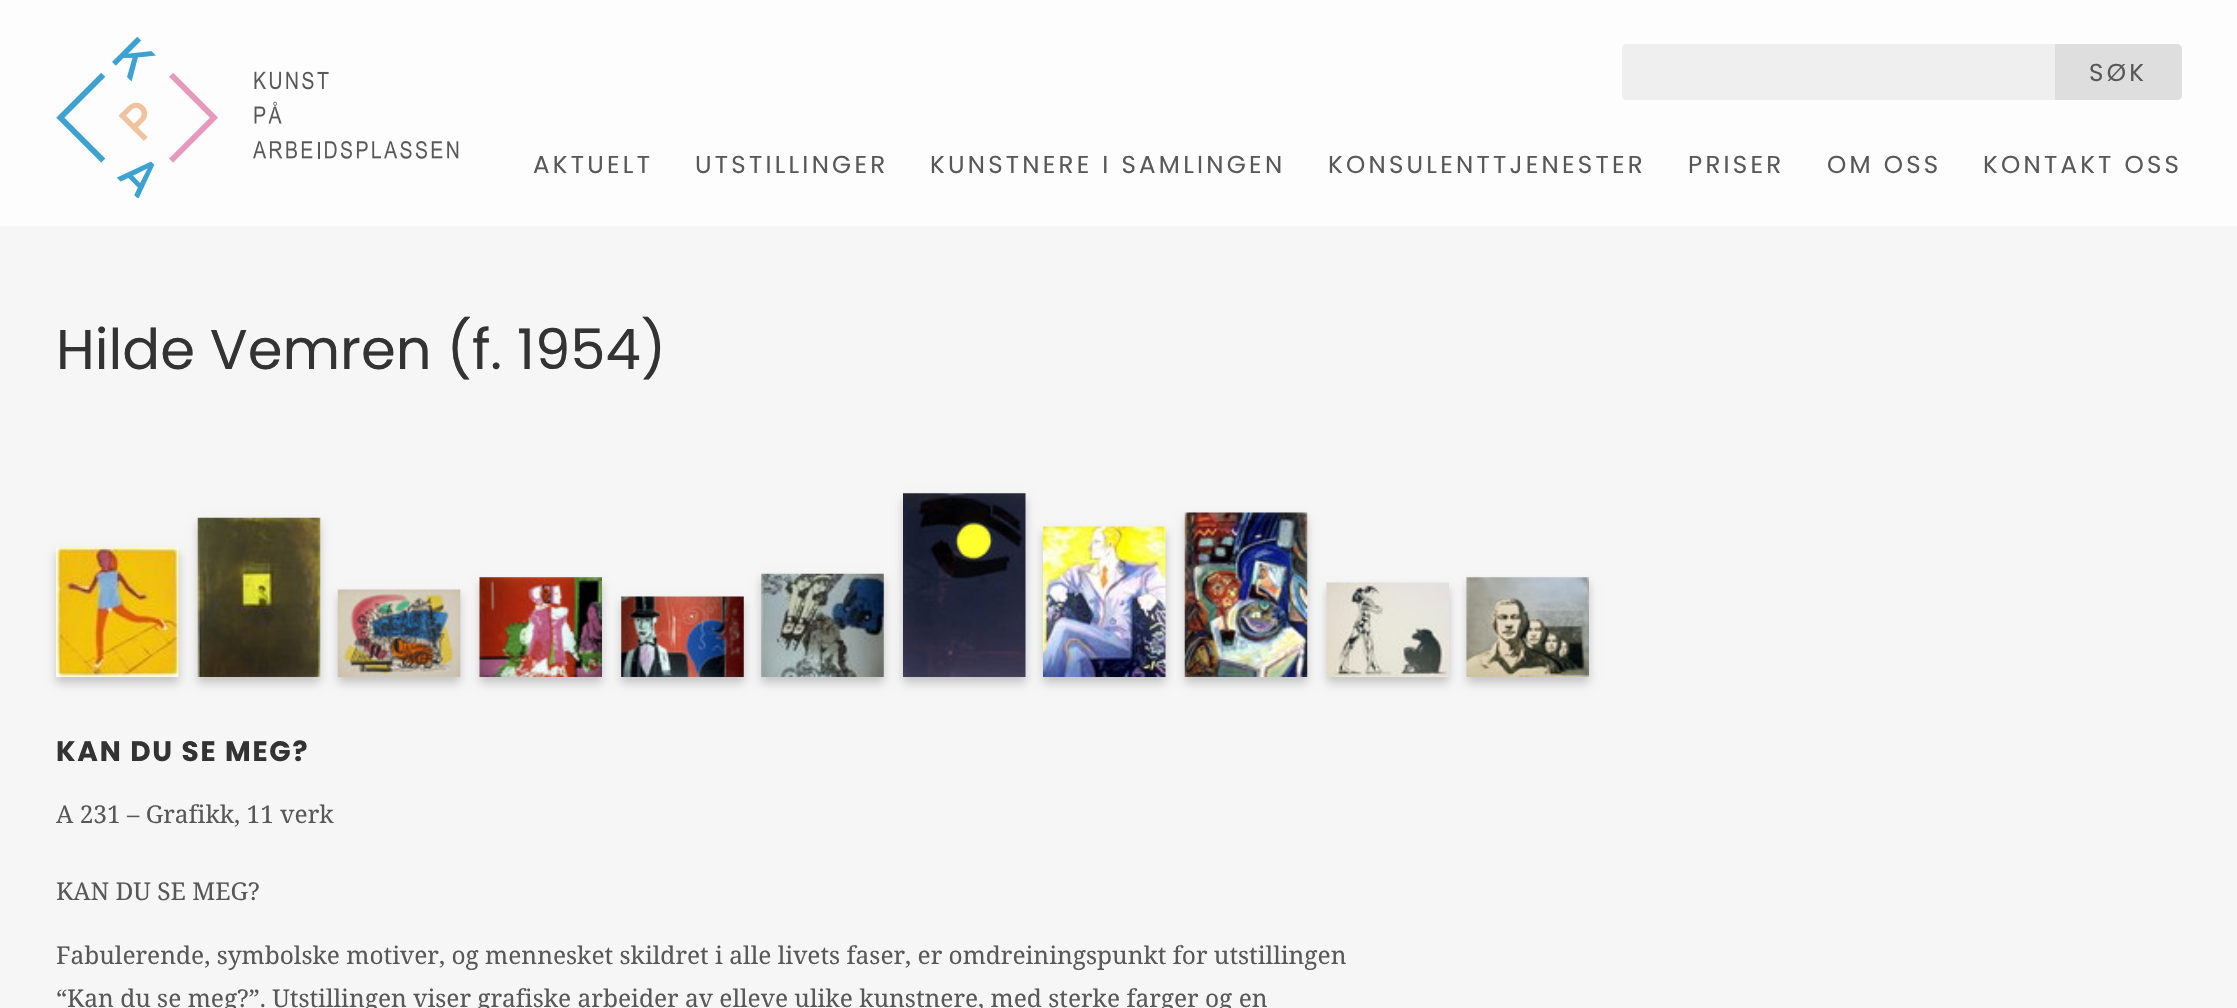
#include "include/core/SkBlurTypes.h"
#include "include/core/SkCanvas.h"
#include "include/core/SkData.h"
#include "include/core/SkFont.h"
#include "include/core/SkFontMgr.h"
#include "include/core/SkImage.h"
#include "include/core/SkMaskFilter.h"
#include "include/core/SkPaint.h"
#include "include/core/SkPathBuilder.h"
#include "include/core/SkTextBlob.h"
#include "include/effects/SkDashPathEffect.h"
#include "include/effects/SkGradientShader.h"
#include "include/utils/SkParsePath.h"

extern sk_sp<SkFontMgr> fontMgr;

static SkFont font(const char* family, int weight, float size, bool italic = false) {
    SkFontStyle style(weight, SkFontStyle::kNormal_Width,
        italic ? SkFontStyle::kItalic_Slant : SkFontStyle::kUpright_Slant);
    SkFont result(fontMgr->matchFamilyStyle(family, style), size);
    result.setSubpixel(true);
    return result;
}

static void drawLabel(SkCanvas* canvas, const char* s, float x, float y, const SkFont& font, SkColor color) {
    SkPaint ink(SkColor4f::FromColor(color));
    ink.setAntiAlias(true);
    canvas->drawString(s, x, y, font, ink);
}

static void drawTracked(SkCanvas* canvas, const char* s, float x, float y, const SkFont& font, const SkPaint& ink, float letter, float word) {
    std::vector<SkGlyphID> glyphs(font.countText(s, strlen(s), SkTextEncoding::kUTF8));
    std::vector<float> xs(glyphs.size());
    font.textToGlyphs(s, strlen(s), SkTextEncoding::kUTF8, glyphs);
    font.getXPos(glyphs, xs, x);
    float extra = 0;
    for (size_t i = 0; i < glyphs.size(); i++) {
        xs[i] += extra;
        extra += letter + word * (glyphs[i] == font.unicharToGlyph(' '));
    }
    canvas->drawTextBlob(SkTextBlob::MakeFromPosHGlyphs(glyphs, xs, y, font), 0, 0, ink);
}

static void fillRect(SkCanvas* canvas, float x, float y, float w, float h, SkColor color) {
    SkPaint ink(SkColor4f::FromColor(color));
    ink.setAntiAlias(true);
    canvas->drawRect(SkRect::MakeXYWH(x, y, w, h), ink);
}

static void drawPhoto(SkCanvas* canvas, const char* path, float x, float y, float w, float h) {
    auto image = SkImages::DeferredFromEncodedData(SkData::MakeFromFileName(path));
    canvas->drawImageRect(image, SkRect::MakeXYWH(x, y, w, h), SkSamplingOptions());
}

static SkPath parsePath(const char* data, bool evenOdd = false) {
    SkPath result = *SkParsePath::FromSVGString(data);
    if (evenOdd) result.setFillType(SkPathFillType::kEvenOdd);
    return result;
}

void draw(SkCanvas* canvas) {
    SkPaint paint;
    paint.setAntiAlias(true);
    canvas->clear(0xFFF6F6F6);
    fillRect(canvas, 0, 0, 2237, 226, 0xFFFDFDFD);
    drawPhoto(canvas, "assets/img1.png", 56, 37, 403, 161);
    paint.setColor(0xFFEFEFEF);
    canvas->drawPath(parsePath("M1627 44H2055V100H1627C1624 100 1622 98 1622 95V49C1622 46 1624 44 1627 44Z"), paint);
    paint.setColor(0xFFDEDEDE);
    canvas->drawPath(parsePath("M2055 44H2177C2180 44 2182 46 2182 49V95C2182 98 2180 100 2177 100H2055Z"), paint);
    SkFont font1 = font("Poppins", 400, 24.5f);
    paint.setColor(0xFF585858);
    drawTracked(canvas, "SØK", 2089, 81, font1, paint, 3.25f, 0);
    drawTracked(canvas, "AKTUELT", 533, 173, font1, paint, 3.25f, 0);
    drawTracked(canvas, "UTSTILLINGER", 695, 173, font1, paint, 3.25f, 0);
    drawTracked(canvas, "KUNSTNERE I SAMLINGEN", 930, 173, font1, paint, 3.25f, 0);
    drawTracked(canvas, "KONSULENTTJENESTER", 1328, 173, font1, paint, 3.25f, 0);
    drawTracked(canvas, "PRISER", 1688, 173, font1, paint, 3.25f, 0);
    drawTracked(canvas, "OM OSS", 1827, 173, font1, paint, 3.25f, 0);
    drawTracked(canvas, "KONTAKT OSS", 1983, 173, font1, paint, 3.25f, 0);
    SkFont font2 = font("Poppins", 400, 56);
    drawLabel(canvas, "Hilde Vemren (f. 1954)", 56, 369, font2, 0xFF333333);
    paint.setColor(0x33000000);
    paint.setMaskFilter(SkMaskFilter::MakeBlur(kNormal_SkBlurStyle, 4.5f));
    canvas->drawRect(SkRect::MakeXYWH(56, 553, 123, 130), paint);
    paint.setMaskFilter(nullptr);
    drawPhoto(canvas, "assets/img2.png", 56, 547, 123, 130);
    paint.setMaskFilter(SkMaskFilter::MakeBlur(kNormal_SkBlurStyle, 4.5f));
    canvas->drawRect(SkRect::MakeXYWH(198, 523, 122, 160), paint);
    paint.setMaskFilter(nullptr);
    drawPhoto(canvas, "assets/img3.png", 197, 517, 124, 160);
    paint.setMaskFilter(SkMaskFilter::MakeBlur(kNormal_SkBlurStyle, 4.5f));
    canvas->drawRect(SkRect::MakeXYWH(338, 595, 122, 88), paint);
    paint.setMaskFilter(nullptr);
    drawPhoto(canvas, "assets/img4.png", 337, 589, 124, 88);
    paint.setMaskFilter(SkMaskFilter::MakeBlur(kNormal_SkBlurStyle, 4.5f));
    canvas->drawRect(SkRect::MakeXYWH(480, 583, 122, 100), paint);
    paint.setMaskFilter(nullptr);
    drawPhoto(canvas, "assets/img5.png", 479, 577, 123, 100);
    paint.setMaskFilter(SkMaskFilter::MakeBlur(kNormal_SkBlurStyle, 4.5f));
    canvas->drawRect(SkRect::MakeXYWH(621, 602, 123, 81), paint);
    paint.setMaskFilter(nullptr);
    drawPhoto(canvas, "assets/img6.png", 621, 596, 123, 81);
    paint.setMaskFilter(SkMaskFilter::MakeBlur(kNormal_SkBlurStyle, 4.5f));
    canvas->drawRect(SkRect::MakeXYWH(761, 579, 123, 104), paint);
    paint.setMaskFilter(nullptr);
    drawPhoto(canvas, "assets/img7.png", 761, 573, 123, 104);
    paint.setMaskFilter(SkMaskFilter::MakeBlur(kNormal_SkBlurStyle, 4.5f));
    canvas->drawRect(SkRect::MakeXYWH(903, 499, 123, 184), paint);
    paint.setMaskFilter(nullptr);
    drawPhoto(canvas, "assets/img8.png", 903, 493, 123, 184);
    paint.setMaskFilter(SkMaskFilter::MakeBlur(kNormal_SkBlurStyle, 4.5f));
    canvas->drawRect(SkRect::MakeXYWH(1043, 532, 123, 151), paint);
    paint.setMaskFilter(nullptr);
    drawPhoto(canvas, "assets/img9.png", 1043, 526, 123, 151);
    paint.setMaskFilter(SkMaskFilter::MakeBlur(kNormal_SkBlurStyle, 4.5f));
    canvas->drawRect(SkRect::MakeXYWH(1185, 518, 122, 165), paint);
    paint.setMaskFilter(nullptr);
    drawPhoto(canvas, "assets/img10.png", 1184, 512, 124, 165);
    paint.setMaskFilter(SkMaskFilter::MakeBlur(kNormal_SkBlurStyle, 4.5f));
    canvas->drawRect(SkRect::MakeXYWH(1327, 588, 122, 95), paint);
    paint.setMaskFilter(nullptr);
    drawPhoto(canvas, "assets/img11.png", 1326, 582, 123, 95);
    paint.setMaskFilter(SkMaskFilter::MakeBlur(kNormal_SkBlurStyle, 4.5f));
    canvas->drawRect(SkRect::MakeXYWH(1467, 583, 122, 100), paint);
    paint.setMaskFilter(nullptr);
    drawPhoto(canvas, "assets/img12.png", 1466, 577, 123, 100);
    SkFont font3 = font("Poppins", 700, 28);
    paint.setColor(0xFF333333);
    drawTracked(canvas, "KAN DU SE MEG?", 56, 761, font3, paint, 1.75f, 0);
    SkFont font4 = font("Noto Serif", 400, 24.5f);
    drawLabel(canvas, "A 231 – Grafikk, 11 verk", 56, 823, font4, 0xFF585858);
    drawLabel(canvas, "KAN DU SE MEG?", 56, 900, font4, 0xFF585858);
    drawLabel(canvas, "Fabulerende, symbolske motiver, og mennesket skildret i alle livets faser, er omdreiningspunkt for utstillingen", 56, 964, font4, 0xFF585858);
    drawLabel(canvas, "“Kan du se meg?”. Utstillingen viser grafiske arbeider av elleve ulike kunstnere, med sterke farger og en", 56, 1007, font4, 0xFF585858);
}
